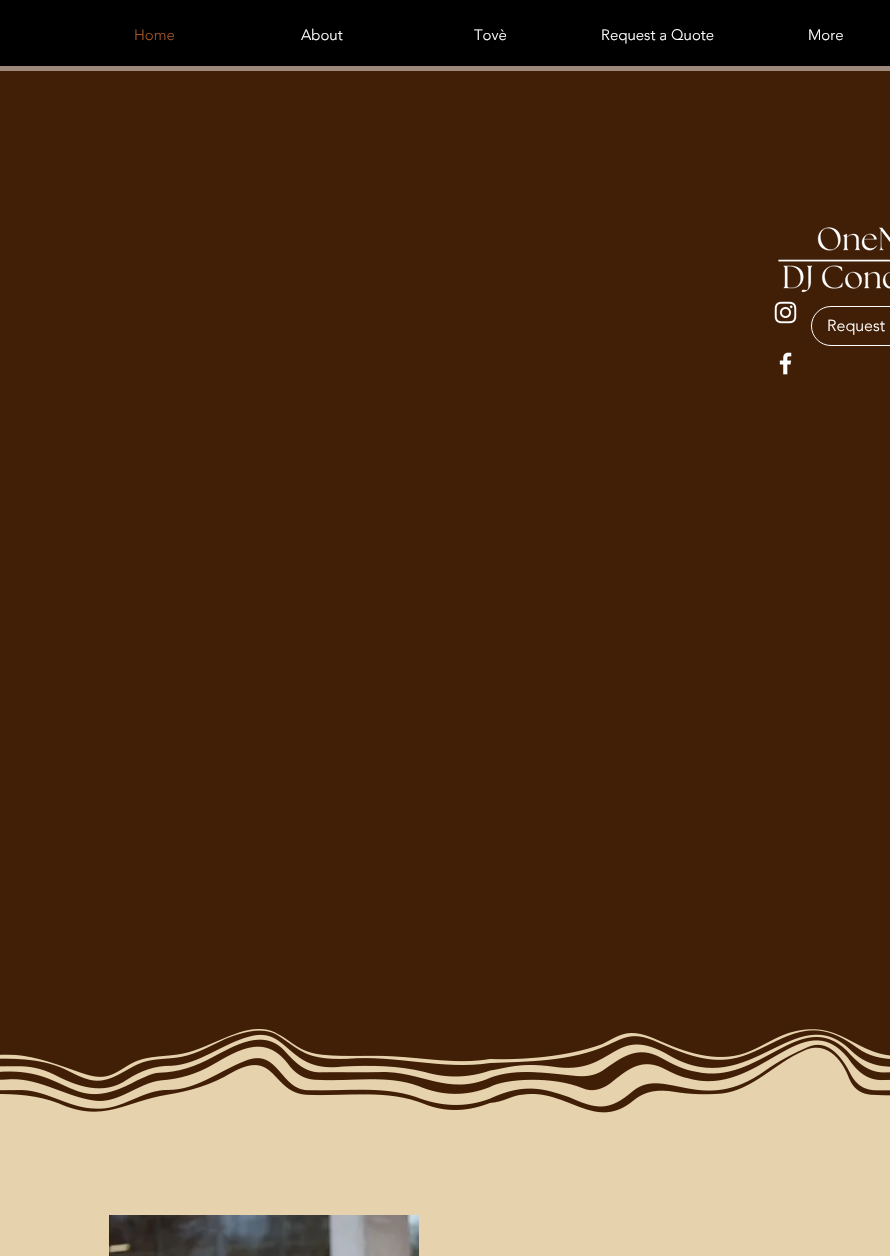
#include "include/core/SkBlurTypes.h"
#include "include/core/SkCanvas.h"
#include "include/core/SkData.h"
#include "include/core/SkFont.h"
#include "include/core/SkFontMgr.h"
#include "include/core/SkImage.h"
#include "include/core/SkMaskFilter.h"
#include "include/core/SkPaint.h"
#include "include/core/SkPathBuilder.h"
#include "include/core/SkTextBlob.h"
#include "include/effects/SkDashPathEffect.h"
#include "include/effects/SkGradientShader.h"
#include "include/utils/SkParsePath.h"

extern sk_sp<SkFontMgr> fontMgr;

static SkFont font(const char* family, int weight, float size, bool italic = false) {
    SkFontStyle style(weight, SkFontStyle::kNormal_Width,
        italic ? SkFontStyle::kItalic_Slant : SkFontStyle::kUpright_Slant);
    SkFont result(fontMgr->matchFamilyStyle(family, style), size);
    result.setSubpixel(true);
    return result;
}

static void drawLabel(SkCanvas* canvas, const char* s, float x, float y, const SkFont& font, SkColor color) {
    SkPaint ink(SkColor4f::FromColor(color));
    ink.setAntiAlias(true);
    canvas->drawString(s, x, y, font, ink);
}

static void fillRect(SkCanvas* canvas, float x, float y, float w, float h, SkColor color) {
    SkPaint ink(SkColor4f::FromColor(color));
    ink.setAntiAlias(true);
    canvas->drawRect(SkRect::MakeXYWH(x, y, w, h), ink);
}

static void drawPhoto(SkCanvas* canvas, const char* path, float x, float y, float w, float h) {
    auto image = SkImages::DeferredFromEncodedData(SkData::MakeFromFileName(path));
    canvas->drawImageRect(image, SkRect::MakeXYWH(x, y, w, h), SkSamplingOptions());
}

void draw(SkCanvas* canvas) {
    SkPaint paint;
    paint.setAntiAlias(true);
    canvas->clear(0xFF411E06);
    fillRect(canvas, 0, 0, 890, 66, 0xFF000000);
    fillRect(canvas, 0, 66, 890, 5, 0xFF9D897C);
    SkFont font1 = font("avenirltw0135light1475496", 300, 15);
    drawLabel(canvas, "Home", 134, 40, font1, 0xFFA05222);
    drawLabel(canvas, "About", 301, 40, font1, 0xFFFFFFFF);
    drawLabel(canvas, "Tovè", 474, 40, font1, 0xFFFFFFFF);
    drawLabel(canvas, "Request a Quote", 601, 40, font1, 0xFFFFFFFF);
    drawLabel(canvas, "More", 808, 40, font1, 0xFFFFFFFF);
    drawPhoto(canvas, "assets/img1.png", 774, 301, 23, 23);
    drawPhoto(canvas, "assets/img2.png", 779, 352, 13, 23);
    drawPhoto(canvas, "assets/img3.png", 778, 227, 112, 66);
    paint.setStroke(true);
    paint.setStrokeWidth(1);
    paint.setColor(0xFFFFFFFE);
    canvas->drawRoundRect(SkRect::MakeXYWH(811.5f, 306.5f, 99, 39), 19.5f, 19.5f, paint);
    SkFont font2 = font("avenirltw0135light1475496", 300, 16);
    drawLabel(canvas, "Request", 827, 331, font2, 0xFFFFFFFF);
    drawPhoto(canvas, "assets/img4.png", 0, 1029, 890, 100);
    paint.setStroke(false);
    {
        const SkColor colors[] = {0xFF584A41, 0xFFE6D2AC};
        const float stops[] = {0.38f, 0.78f};
        const SkPoint ends[] = {{490, 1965}, {490, 1129}};
        paint.setShader(SkGradientShader::MakeLinear(ends, colors, stops, 2, SkTileMode::kClamp));
        paint.setAlpha(255);
    }
    canvas->drawRect(SkRect::MakeXYWH(0, 1129, 890, 127), paint);
    drawPhoto(canvas, "assets/img5.png", 109, 1215, 310, 41);
}
